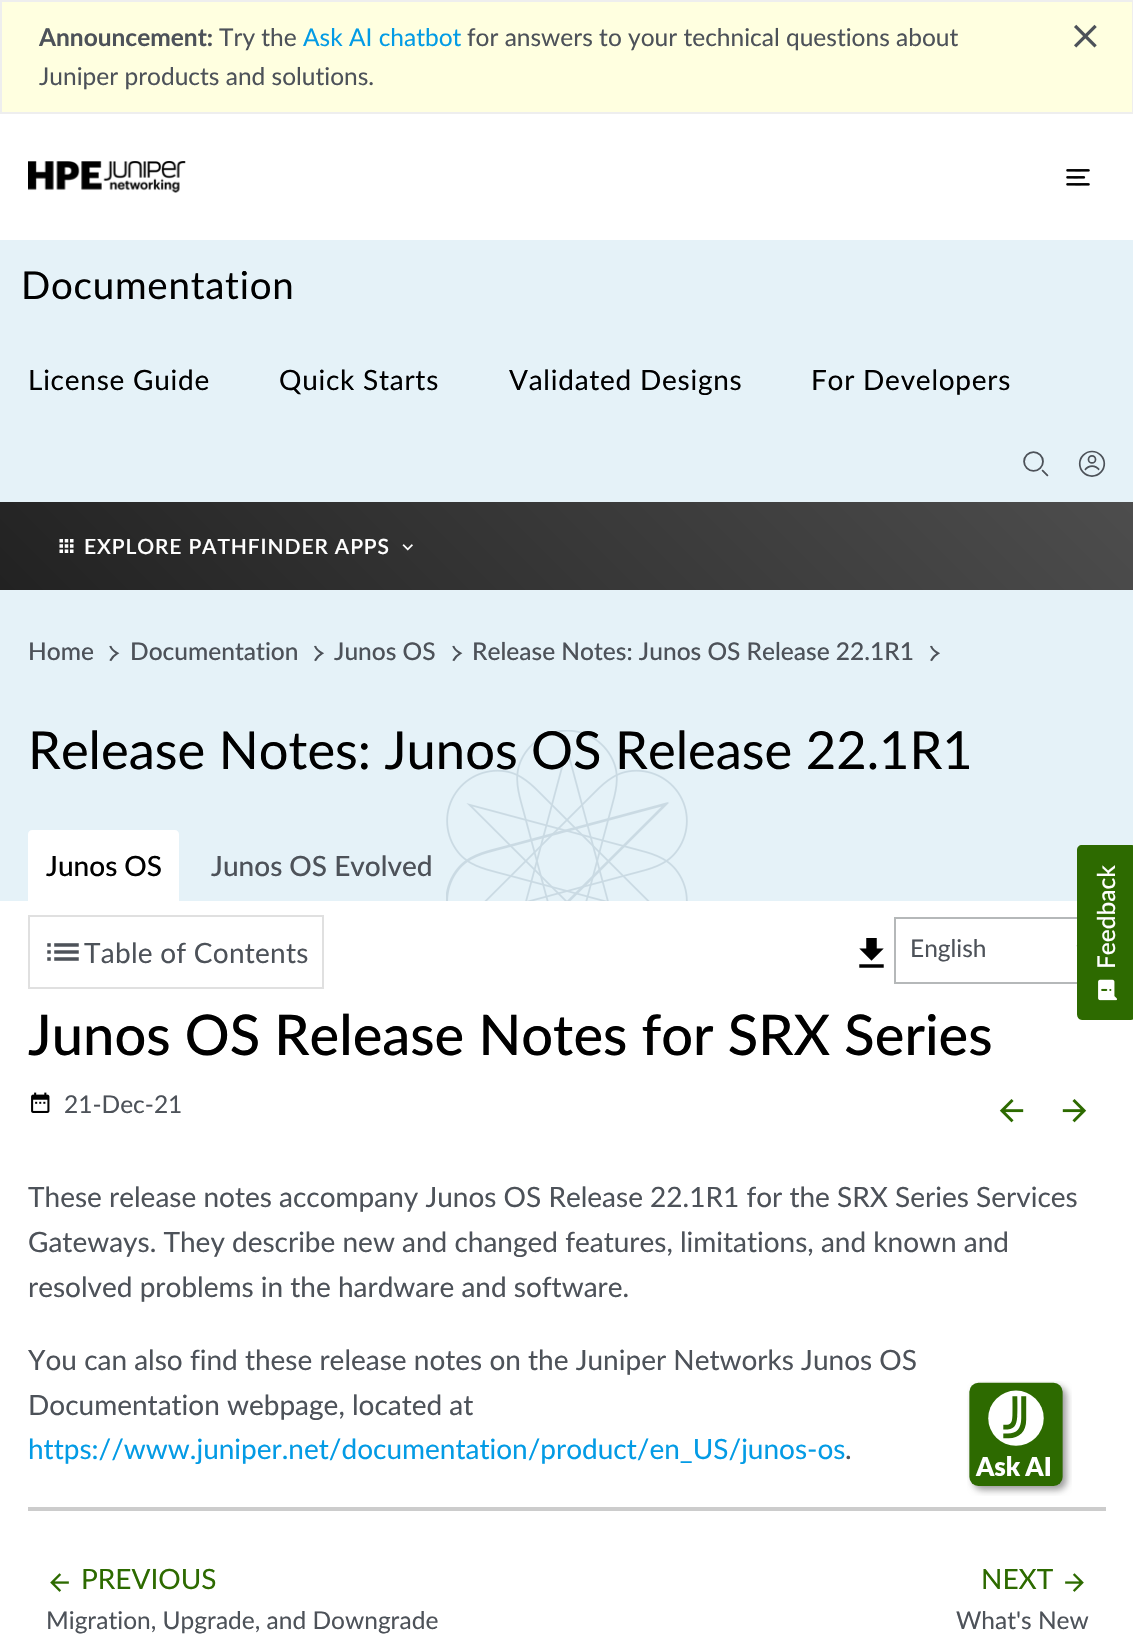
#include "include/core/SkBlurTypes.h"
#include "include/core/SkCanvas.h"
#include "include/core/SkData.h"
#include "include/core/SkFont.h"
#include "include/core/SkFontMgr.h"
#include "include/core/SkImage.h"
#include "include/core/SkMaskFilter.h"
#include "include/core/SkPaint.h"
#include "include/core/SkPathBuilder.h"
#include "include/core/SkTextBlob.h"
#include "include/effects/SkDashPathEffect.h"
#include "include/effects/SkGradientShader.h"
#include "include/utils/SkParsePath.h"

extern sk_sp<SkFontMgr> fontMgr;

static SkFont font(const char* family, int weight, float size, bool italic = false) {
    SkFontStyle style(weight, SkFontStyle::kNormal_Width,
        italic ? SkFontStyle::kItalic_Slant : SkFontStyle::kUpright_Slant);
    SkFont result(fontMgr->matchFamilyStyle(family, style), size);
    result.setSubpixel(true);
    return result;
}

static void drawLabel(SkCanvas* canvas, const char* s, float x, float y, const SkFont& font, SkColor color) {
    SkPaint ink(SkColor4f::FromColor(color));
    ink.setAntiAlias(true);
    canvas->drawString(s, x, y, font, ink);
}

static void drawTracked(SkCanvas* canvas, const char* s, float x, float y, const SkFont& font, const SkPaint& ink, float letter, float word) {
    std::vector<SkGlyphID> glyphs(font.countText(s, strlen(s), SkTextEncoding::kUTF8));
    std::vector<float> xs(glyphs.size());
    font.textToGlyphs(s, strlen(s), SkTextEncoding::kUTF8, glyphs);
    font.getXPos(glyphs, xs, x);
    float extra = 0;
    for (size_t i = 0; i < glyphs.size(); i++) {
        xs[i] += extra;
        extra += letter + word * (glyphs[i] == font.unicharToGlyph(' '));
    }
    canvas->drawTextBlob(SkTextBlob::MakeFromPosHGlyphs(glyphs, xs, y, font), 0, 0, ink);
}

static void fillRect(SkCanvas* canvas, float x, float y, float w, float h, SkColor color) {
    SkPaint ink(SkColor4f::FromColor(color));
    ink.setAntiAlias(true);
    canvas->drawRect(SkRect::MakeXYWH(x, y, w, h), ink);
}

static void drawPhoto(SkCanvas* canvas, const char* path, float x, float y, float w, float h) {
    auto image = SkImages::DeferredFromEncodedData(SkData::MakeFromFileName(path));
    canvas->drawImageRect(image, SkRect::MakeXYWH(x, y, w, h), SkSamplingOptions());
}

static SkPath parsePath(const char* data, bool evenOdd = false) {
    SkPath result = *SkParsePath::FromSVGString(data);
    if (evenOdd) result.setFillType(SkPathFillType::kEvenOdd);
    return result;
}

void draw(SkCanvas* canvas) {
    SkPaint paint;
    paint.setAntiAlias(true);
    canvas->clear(0xFFFFFFFF);
    paint.setColor(0xFFFFFFE0);
    canvas->drawRect(SkRect::MakeXYWH(1, 1, 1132, 112), paint);
    paint.setStroke(true);
    paint.setStrokeWidth(2);
    paint.setColor(0xFFEEEEEE);
    canvas->drawRect(SkRect::MakeXYWH(1, 1, 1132, 112), paint);
    SkFont font1 = font("Lato", 700, 24.5f);
    drawLabel(canvas, "Announcement:", 39, 46, font1, 0xFF4D5259);
    SkFont font2 = font("Lato", 400, 24.5f);
    drawLabel(canvas, "Try the", 219, 46, font2, 0xFF4D5259);
    drawLabel(canvas, "Ask AI chatbot", 303, 46, font2, 0xFF039BE5);
    drawLabel(canvas, "for answers to your technical questions about", 467, 46, font2, 0xFF4D5259);
    drawLabel(canvas, "Juniper products and solutions.", 39, 85, font2, 0xFF4D5259);
    drawPhoto(canvas, "assets/img1.png", 1074, 24, 23, 24);
    drawPhoto(canvas, "assets/img2.png", 28, 161, 158, 32);
    drawPhoto(canvas, "assets/img3.png", 1066, 169, 24, 17);
    fillRect(canvas, 0, 240, 1133, 262, 0xFFE5F2F8);
    SkFont font3 = font("Lato", 400, 38.5f);
    paint.setStroke(false);
    paint.setColor(0xFF000000);
    drawTracked(canvas, "Documentation", 21, 299, font3, paint, 0.75f, 0);
    SkFont font4 = font("Lato", 400, 28);
    drawTracked(canvas, "License Guide", 28, 390, font4, paint, 0.75f, 0);
    drawTracked(canvas, "Quick Starts", 279, 390, font4, paint, 0.75f, 0);
    drawTracked(canvas, "Validated Designs", 509, 390, font4, paint, 0.75f, 0);
    drawTracked(canvas, "For Developers", 811, 390, font4, paint, 0.75f, 0);
    drawPhoto(canvas, "assets/img4.png", 1023, 451, 26, 26);
    drawPhoto(canvas, "assets/img5.png", 1078, 450, 28, 27);
    {
        const SkColor colors[] = {0xFF222222, 0xFF4D4D4D};
        const float stops[] = {0, 1};
        const SkPoint ends[] = {{262, 851}, {872, 241}};
        paint.setShader(SkGradientShader::MakeLinear(ends, colors, stops, 2, SkTileMode::kClamp));
        paint.setAlpha(255);
    }
    canvas->drawRect(SkRect::MakeXYWH(0, 502, 1133, 88), paint);
    drawPhoto(canvas, "assets/img6.png", 59, 539, 15, 14);
    SkFont font5 = font("Lato", 600, 21);
    paint.setShader(nullptr);
    paint.setColor(0xFFFFFFFF);
    drawTracked(canvas, "EXPLORE PATHFINDER APPS", 84, 554, font5, paint, 0.9f, 0);
    drawPhoto(canvas, "assets/img7.png", 402, 544, 11, 7);
    fillRect(canvas, 0, 590, 1133, 311, 0xFFE5F2F8);
    drawPhoto(canvas, "assets/img8.png", 446, 730, 242, 171);
    SkFont font6 = font("Lato", 500, 24.5f);
    drawLabel(canvas, "Home", 28, 660, font6, 0xFF4D5259);
    drawPhoto(canvas, "assets/img9.png", 109, 645, 11, 17);
    drawLabel(canvas, "Documentation", 130, 660, font6, 0xFF4D5259);
    drawPhoto(canvas, "assets/img10.png", 314, 645, 10, 17);
    drawLabel(canvas, "Junos OS", 334, 660, font6, 0xFF4D5259);
    drawPhoto(canvas, "assets/img9.png", 452, 645, 11, 17);
    drawLabel(canvas, "Release Notes: Junos OS Release 22.1R1", 472, 660, font6, 0xFF4D5259);
    drawPhoto(canvas, "assets/img10.png", 930, 645, 10, 17);
    SkFont font7 = font("Lato", 400, 52.5f);
    drawLabel(canvas, "Release Notes: Junos OS Release 22.1R1", 28, 769, font7, 0xFF000000);
    canvas->drawPath(parsePath("M32 830H175C177 830 179 832 179 834V901H28V834C28 832 30 830 32 830Z"), paint);
    SkFont font8 = font("Lato", 500, 28);
    drawLabel(canvas, "Junos OS", 46, 876, font8, 0xFF000000);
    drawLabel(canvas, "Junos OS Evolved", 211, 876, font8, 0xFF4D5259);
    paint.setStroke(true);
    paint.setColor(0xFFE0E0E0);
    canvas->drawRect(SkRect::MakeXYWH(29, 916, 294, 72), paint);
    drawPhoto(canvas, "assets/img11.png", 47, 943, 32, 18);
    paint.setStroke(false);
    paint.setColor(0xFF4D5259);
    drawTracked(canvas, "Table of Contents", 84, 963, font4, paint, 0.25f, 0);
    drawPhoto(canvas, "assets/img12.png", 859, 938, 25, 30);
    paint.setStroke(true);
    paint.setColor(0xFFB5B8B9);
    canvas->drawRect(SkRect::MakeXYWH(895, 918, 208, 65), paint);
    drawLabel(canvas, "English", 910, 957, font2, 0xFF4D5259);
    drawPhoto(canvas, "assets/img13.png", 1076, 945, 1, 2);
    SkFont font9 = font("Lato", 500, 56);
    drawLabel(canvas, "Junos OS Release Notes for SRX Series", 28, 1055, font9, 0xFF000000);
    drawPhoto(canvas, "assets/img14.png", 31, 1092, 19, 21);
    drawLabel(canvas, "21-Dec-21", 64, 1113, font2, 0xFF4D5259);
    drawPhoto(canvas, "assets/img15.png", 999, 1099, 25, 24);
    drawPhoto(canvas, "assets/img16.png", 1062, 1099, 25, 24);
    drawLabel(canvas, "These release notes accompany Junos OS Release 22.1R1 for the SRX Series Services", 28, 1207, font4, 0xFF4D5259);
    drawLabel(canvas, "Gateways. They describe new and changed features, limitations, and known and", 28, 1252, font4, 0xFF4D5259);
    drawLabel(canvas, "resolved problems in the hardware and software.", 28, 1297, font4, 0xFF4D5259);
    drawLabel(canvas, "You can also find these release notes on the Juniper Networks Junos OS", 28, 1370, font4, 0xFF4D5259);
    drawLabel(canvas, "Documentation webpage, located at", 28, 1415, font4, 0xFF4D5259);
    drawLabel(canvas, "https://www.juniper.net/documentation/product/en_US/junos-os", 28, 1459, font4, 0xFF039BE5);
    drawLabel(canvas, ".", 845, 1459, font4, 0xFF4D5259);
    fillRect(canvas, 28, 1507, 1078, 4, 0xFFCCCCCC);
    drawPhoto(canvas, "assets/img17.png", 50, 1573, 19, 19);
    drawLabel(canvas, "PREVIOUS", 81, 1589, font4, 0xFF2D6A00);
    drawLabel(canvas, "Migration, Upgrade, and Downgrade", 46, 1629, font2, 0xFF4D5259);
    drawLabel(canvas, "NEXT", 981, 1589, font4, 0xFF2D6A00);
    drawPhoto(canvas, "assets/img18.png", 1065, 1573, 19, 19);
    drawLabel(canvas, "What's New", 956, 1629, font2, 0xFF4D5259);
    drawPhoto(canvas, "assets/img19.png", 967, 1381, 105, 115);
    paint.setStroke(false);
    paint.setColor(0xFF2D6A00);
    canvas->drawPath(parsePath("M1077 1014V850C1077 847 1079 845 1082 845H1131C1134 845 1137 847 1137 850V1014C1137 1017 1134 1020 1131 1020H1082C1079 1020 1077 1017 1077 1014Z"), paint);
    canvas->save();
    canvas->rotate(-90, 1115, 969);
    drawLabel(canvas, "Feedback", 1115, 969, font6, 0xFFFFFFFF);
    canvas->restore();
    drawPhoto(canvas, "assets/img20.png", 1098, 979, 19, 22);
}
